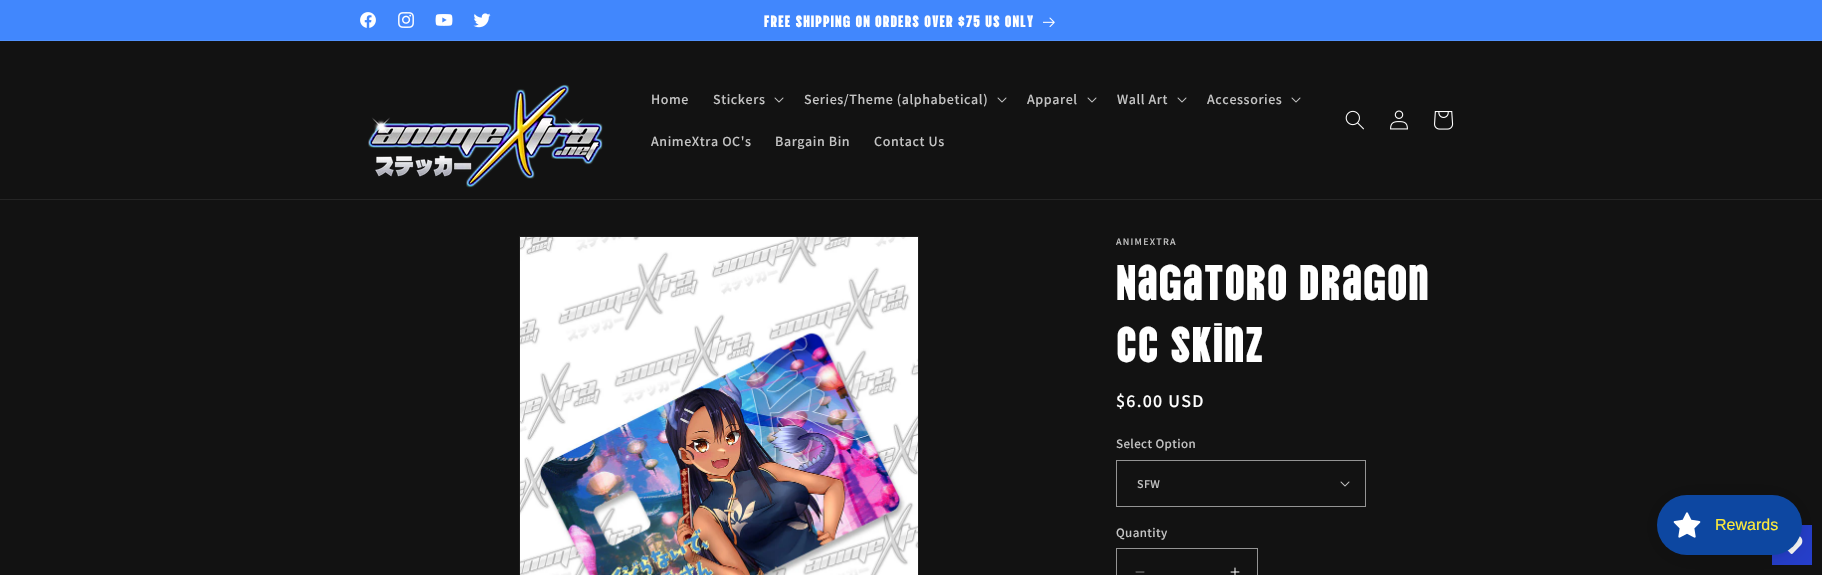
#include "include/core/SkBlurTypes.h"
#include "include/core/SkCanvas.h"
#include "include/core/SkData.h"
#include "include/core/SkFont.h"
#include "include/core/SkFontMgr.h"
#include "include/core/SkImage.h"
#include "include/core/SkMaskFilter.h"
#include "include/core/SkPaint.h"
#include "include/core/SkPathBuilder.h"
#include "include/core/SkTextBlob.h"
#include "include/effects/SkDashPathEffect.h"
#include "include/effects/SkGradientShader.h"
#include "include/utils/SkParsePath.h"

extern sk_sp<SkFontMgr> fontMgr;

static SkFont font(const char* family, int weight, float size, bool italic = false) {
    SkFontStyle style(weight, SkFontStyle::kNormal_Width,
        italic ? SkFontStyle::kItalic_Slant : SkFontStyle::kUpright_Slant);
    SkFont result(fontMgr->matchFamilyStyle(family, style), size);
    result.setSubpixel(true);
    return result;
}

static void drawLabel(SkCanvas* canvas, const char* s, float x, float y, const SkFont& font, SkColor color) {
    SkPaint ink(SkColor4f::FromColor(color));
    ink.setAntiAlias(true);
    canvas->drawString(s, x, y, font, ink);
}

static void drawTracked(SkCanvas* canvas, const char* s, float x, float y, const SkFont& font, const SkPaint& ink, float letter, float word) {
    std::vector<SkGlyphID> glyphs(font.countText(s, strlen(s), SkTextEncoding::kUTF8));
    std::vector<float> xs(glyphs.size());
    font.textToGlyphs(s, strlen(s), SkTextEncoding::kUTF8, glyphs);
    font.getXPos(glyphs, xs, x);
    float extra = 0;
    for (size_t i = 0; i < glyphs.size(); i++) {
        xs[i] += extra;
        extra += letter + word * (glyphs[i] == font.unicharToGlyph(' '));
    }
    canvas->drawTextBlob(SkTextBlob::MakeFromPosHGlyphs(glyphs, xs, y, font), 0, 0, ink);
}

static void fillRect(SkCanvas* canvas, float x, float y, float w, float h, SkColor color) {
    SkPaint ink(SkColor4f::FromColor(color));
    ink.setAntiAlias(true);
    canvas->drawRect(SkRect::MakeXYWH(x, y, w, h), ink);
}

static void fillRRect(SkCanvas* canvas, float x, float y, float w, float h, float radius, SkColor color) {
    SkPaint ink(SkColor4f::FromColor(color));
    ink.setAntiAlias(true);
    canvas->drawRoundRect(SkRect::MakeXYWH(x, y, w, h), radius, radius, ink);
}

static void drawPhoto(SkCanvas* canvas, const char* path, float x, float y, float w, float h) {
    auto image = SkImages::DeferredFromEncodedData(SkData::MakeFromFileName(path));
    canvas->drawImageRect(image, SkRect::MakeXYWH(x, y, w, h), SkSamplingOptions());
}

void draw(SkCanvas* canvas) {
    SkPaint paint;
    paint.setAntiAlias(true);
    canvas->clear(0xFF121212);
    fillRect(canvas, 0, 0, 1822, 40, 0xFF4187FD);
    fillRect(canvas, 0, 40, 1822, 1, 0xFF5091FD);
    drawPhoto(canvas, "assets/img1.png", 360, 12, 16, 16);
    drawPhoto(canvas, "assets/img2.png", 398, 12, 16, 16);
    drawPhoto(canvas, "assets/img3.png", 435, 14, 18, 12);
    drawPhoto(canvas, "assets/img4.png", 473, 13, 18, 15);
    SkFont font1 = font("Vina Sans", 400, 16.25f);
    paint.setColor(0xFFFFFFFF);
    drawTracked(canvas, "FREE SHIPPING ON ORDERS OVER $75 US ONLY", 764, 27, font1, paint, 1, 0);
    drawPhoto(canvas, "assets/img5.png", 1043, 17, 12, 10);
    fillRect(canvas, 0, 199, 1822, 1, 0xFF252525);
    drawPhoto(canvas, "assets/img6.png", 368, 84, 235, 104);
    SkFont font2 = font("Assistant", 600, 14);
    paint.setColor(0xFFC4C4C4);
    drawTracked(canvas, "Home", 651, 104, font2, paint, 0.6f, 0);
    drawTracked(canvas, "Stickers", 713, 104, font2, paint, 0.6f, 0);
    drawPhoto(canvas, "assets/img7.png", 774, 97, 10, 6);
    drawTracked(canvas, "Series/Theme (alphabetical)", 804, 104, font2, paint, 0.6f, 0);
    drawPhoto(canvas, "assets/img7.png", 997, 97, 10, 6);
    drawTracked(canvas, "Apparel", 1027, 104, font2, paint, 0.6f, 0);
    drawPhoto(canvas, "assets/img7.png", 1087, 97, 10, 6);
    drawTracked(canvas, "Wall Art", 1117, 104, font2, paint, 0.6f, 0);
    drawPhoto(canvas, "assets/img7.png", 1177, 97, 10, 6);
    drawTracked(canvas, "Accessories", 1207, 104, font2, paint, 0.6f, 0);
    drawPhoto(canvas, "assets/img7.png", 1291, 97, 10, 6);
    drawTracked(canvas, "AnimeXtra OC's", 651, 146, font2, paint, 0.6f, 0);
    drawTracked(canvas, "Bargain Bin", 775, 146, font2, paint, 0.6f, 0);
    drawTracked(canvas, "Contact Us", 874, 146, font2, paint, 0.6f, 0);
    drawPhoto(canvas, "assets/img8.png", 1345, 110, 19, 20);
    drawPhoto(canvas, "assets/img9.png", 1390, 110, 18, 20);
    drawPhoto(canvas, "assets/img10.png", 1434, 111, 20, 19);
    paint.setStroke(true);
    paint.setStrokeWidth(1);
    paint.setColor(0xFF1E1E1E);
    canvas->drawRect(SkRect::MakeXYWH(519.5f, 236.5f, 399, 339), paint);
    drawPhoto(canvas, "assets/img11.png", 520, 237, 398, 338);
    SkFont font3 = font("Assistant", 600, 10);
    paint.setStroke(false);
    paint.setColor(0xFFC4C4C4);
    drawTracked(canvas, "ANIMEXTRA", 1116, 245, font3, paint, 1.25f, 0);
    SkFont font4 = font("Vina Sans", 400, 50);
    paint.setColor(0xFFFFFFFF);
    drawTracked(canvas, "Nagatoro Dragon", 1116, 300, font4, paint, 0.75f, 0);
    drawTracked(canvas, "CC Skinz", 1116, 362, font4, paint, 0.75f, 0);
    SkFont font5 = font("Assistant", 600, 18);
    drawTracked(canvas, "$6.00 USD", 1116, 407, font5, paint, 1.25f, 0);
    SkFont font6 = font("Assistant", 600, 13);
    paint.setColor(0xFFC4C4C4);
    drawTracked(canvas, "Select Option", 1116, 448, font6, paint, 0.4f, 0);
    drawPhoto(canvas, "assets/img7.png", 1340, 481, 10, 6);
    paint.setStroke(true);
    paint.setColor(0xFF949494);
    canvas->drawRect(SkRect::MakeXYWH(1116.5f, 460.5f, 249, 46), paint);
    SkFont font7 = font("Assistant", 600, 12);
    paint.setStroke(false);
    paint.setColor(0xFFC4C4C4);
    drawTracked(canvas, "SFW", 1137, 488, font7, paint, 0.4f, 0);
    drawTracked(canvas, "Quantity", 1116, 537, font6, paint, 0.4f, 0);
    drawPhoto(canvas, "assets/img12.png", 1135, 571, 10, 2);
    drawPhoto(canvas, "assets/img13.png", 1230, 567, 10, 8);
    paint.setStroke(true);
    paint.setColor(0xFF949494);
    canvas->drawRect(SkRect::MakeXYWH(1116.5f, 548.5f, 141, 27), paint);
    fillRect(canvas, 1772, 525, 40, 40, 0xFF263FCC);
    drawPhoto(canvas, "assets/img15.png", 1787, 535, 16, 19);
    paint.setStroke(false);
    paint.setColor(0x26000000);
    paint.setMaskFilter(SkMaskFilter::MakeBlur(kNormal_SkBlurStyle, 15));
    canvas->drawRoundRect(SkRect::MakeXYWH(1657, 497, 145, 60), 30, 30, paint);
    paint.setMaskFilter(nullptr);
    paint.setColor(0x0D000000);
    paint.setMaskFilter(SkMaskFilter::MakeBlur(kNormal_SkBlurStyle, 3));
    canvas->drawRoundRect(SkRect::MakeXYWH(1657, 496, 145, 60), 30, 30, paint);
    paint.setMaskFilter(nullptr);
    fillRRect(canvas, 1657, 495, 145, 60, 30, 0xFF0D47A1);
    drawPhoto(canvas, "assets/img14.png", 1673, 512, 28, 26);
    SkFont font8 = font("Liberation Sans", 400, 16);
    drawLabel(canvas, "Rewards", 1715, 530, font8, 0xFFFFEB3B);
}
